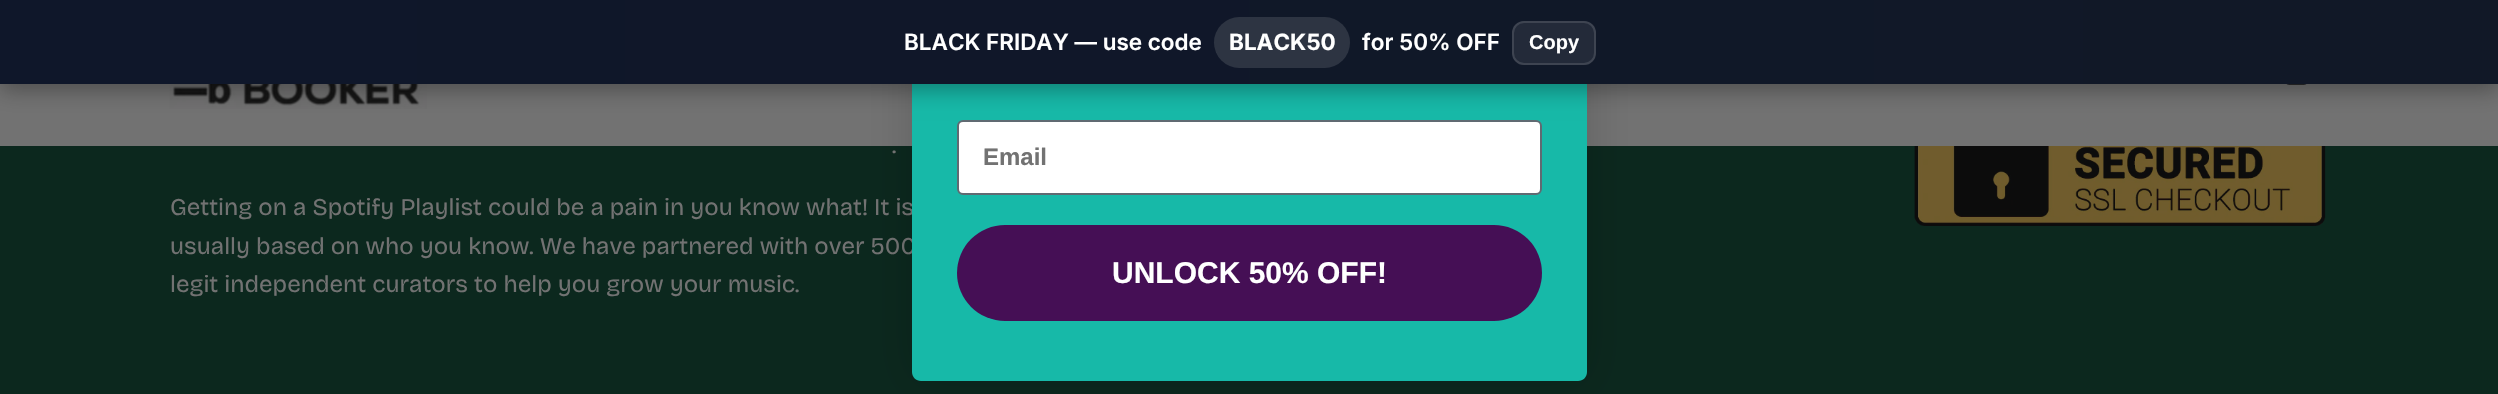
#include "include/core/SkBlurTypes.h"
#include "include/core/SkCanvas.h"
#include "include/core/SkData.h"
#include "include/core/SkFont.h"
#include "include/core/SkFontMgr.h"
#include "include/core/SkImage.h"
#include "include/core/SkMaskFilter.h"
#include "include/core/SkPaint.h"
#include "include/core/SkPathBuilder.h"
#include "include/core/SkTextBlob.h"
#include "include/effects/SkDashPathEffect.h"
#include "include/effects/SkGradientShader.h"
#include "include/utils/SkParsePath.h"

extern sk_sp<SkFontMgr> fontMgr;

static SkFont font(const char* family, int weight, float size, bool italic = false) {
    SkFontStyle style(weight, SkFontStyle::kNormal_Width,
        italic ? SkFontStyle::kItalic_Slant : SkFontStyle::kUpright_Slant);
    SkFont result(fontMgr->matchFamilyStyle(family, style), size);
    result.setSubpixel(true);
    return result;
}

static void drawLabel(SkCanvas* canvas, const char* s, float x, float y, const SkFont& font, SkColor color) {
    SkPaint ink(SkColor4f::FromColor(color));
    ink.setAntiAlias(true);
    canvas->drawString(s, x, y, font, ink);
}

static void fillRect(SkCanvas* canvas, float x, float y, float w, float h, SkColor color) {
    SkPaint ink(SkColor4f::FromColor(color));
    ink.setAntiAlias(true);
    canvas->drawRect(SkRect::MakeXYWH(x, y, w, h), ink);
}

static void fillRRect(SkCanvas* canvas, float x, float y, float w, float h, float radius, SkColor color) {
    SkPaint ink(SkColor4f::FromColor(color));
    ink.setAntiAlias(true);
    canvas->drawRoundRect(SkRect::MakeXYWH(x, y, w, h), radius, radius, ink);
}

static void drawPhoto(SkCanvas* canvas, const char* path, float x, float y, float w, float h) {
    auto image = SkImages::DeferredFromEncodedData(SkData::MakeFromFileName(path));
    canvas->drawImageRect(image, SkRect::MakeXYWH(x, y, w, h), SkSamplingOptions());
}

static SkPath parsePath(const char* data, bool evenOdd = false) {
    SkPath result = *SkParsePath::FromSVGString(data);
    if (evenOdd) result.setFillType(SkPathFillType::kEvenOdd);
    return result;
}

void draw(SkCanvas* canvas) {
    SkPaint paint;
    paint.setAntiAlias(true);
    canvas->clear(0xFF0C281E);
    fillRect(canvas, 0, 84, 2498, 62, 0xFF727272);
    drawPhoto(canvas, "assets/img1.png", 169, 84, 258, 25);
    drawPhoto(canvas, "assets/img2.png", 2286, 84, 21, 1);
    SkFont font1 = font("Bricolage Grotesque", 400, 24);
    drawLabel(canvas, "Getting on a Spotify Playlist could be a pain in you know what! It is", 170, 215, font1, 0xFF727272);
    drawLabel(canvas, "usually based on who you know. We have partnered with over 500", 170, 254, font1, 0xFF727272);
    paint.setColor(0x26000000);
    paint.setMaskFilter(SkMaskFilter::MakeBlur(kNormal_SkBlurStyle, 22.5f));
    canvas->drawRoundRect(SkRect::MakeXYWH(912, -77, 675, 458), 9, 9, paint);
    paint.setMaskFilter(nullptr);
    paint.setColor(0xFF17B9A8);
    canvas->drawPath(parsePath("M912 0H1587V372C1587 377 1583 381 1578 381H921C916 381 912 377 912 372Z"), paint);
    paint.setColor(0xFFFFFFFF);
    canvas->drawRoundRect(SkRect::MakeXYWH(958, 121, 583, 73), 5, 5, paint);
    paint.setStroke(true);
    paint.setStrokeWidth(2);
    paint.setColor(0xFF606A72);
    canvas->drawRoundRect(SkRect::MakeXYWH(958, 121, 583, 73), 5, 5, paint);
    paint.setStroke(false);
    paint.setColor(0x52000000);
    paint.setMaskFilter(SkMaskFilter::MakeBlur(kNormal_SkBlurStyle, 10.5f));
    canvas->drawRect(SkRect::MakeXYWH(0, 6, 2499, 84), paint);
    paint.setMaskFilter(nullptr);
    {
        const SkColor colors[] = {0xFF0F172A, 0xFF111827};
        const float stops[] = {0, 1};
        const SkPoint ends[] = {{0, 42}, {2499, 42}};
        paint.setShader(SkGradientShader::MakeLinear(ends, colors, stops, 2, SkTileMode::kClamp));
        paint.setAlpha(255);
    }
    canvas->drawRect(SkRect::MakeXYWH(0, 0, 2498, 84), paint);
    SkFont font2 = font("Inter", 600, 22.5f);
    drawLabel(canvas, "BLACK FRIDAY — use code", 904, 50, font2, 0xFFFFFFFF);
    fillRRect(canvas, 1214, 17, 136, 51, 25.5f, 0xFF2D3442);
    SkFont font3 = font("Inter", 700, 22.5f);
    drawLabel(canvas, "BLACK50", 1229, 50, font3, 0xFFFFFFFF);
    drawLabel(canvas, "for 50% OFF", 1362, 50, font2, 0xFFFFFFFF);
    fillRRect(canvas, 1512, 21, 84, 44, 12, 0xFF232A39);
    paint.setStroke(true);
    paint.setShader(nullptr);
    paint.setColor(0x1FFFFFFF);
    canvas->drawRoundRect(SkRect::MakeXYWH(1513, 22, 82, 42), 11, 11, paint);
    SkFont font4 = font("Liberation Sans", 700, 20);
    drawLabel(canvas, "Copy", 1529, 49, font4, 0xFFFFFFFF);
    drawLabel(canvas, ".", 892, 153, font1, 0xFF727272);
    drawLabel(canvas, "legit independent curators to help you grow your music.", 170, 292, font1, 0xFF727272);
    drawPhoto(canvas, "assets/img3.png", 1914, 146, 412, 80);
    SkFont font5 = font("Liberation Sans", 700, 24);
    drawLabel(canvas, "Email", 983, 165, font5, 0xFF727272);
    fillRRect(canvas, 957, 225, 585, 96, 48, 0xFF450F55);
    SkFont font6 = font("Liberation Sans", 700, 30);
    drawLabel(canvas, "UNLOCK 50% OFF!", 1112, 283, font6, 0xFFFFFFFF);
}
